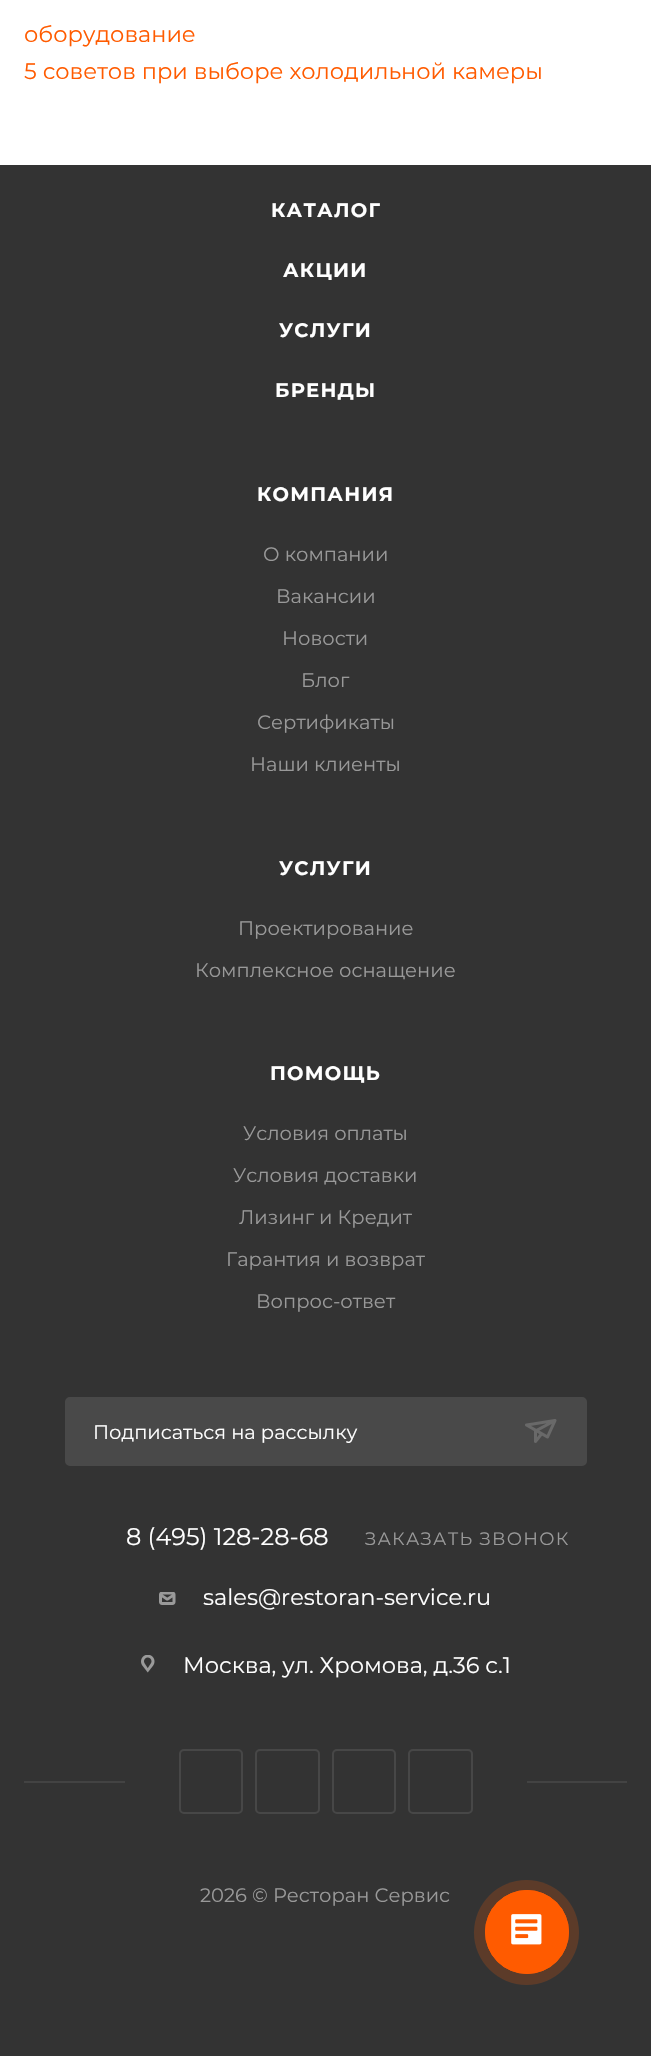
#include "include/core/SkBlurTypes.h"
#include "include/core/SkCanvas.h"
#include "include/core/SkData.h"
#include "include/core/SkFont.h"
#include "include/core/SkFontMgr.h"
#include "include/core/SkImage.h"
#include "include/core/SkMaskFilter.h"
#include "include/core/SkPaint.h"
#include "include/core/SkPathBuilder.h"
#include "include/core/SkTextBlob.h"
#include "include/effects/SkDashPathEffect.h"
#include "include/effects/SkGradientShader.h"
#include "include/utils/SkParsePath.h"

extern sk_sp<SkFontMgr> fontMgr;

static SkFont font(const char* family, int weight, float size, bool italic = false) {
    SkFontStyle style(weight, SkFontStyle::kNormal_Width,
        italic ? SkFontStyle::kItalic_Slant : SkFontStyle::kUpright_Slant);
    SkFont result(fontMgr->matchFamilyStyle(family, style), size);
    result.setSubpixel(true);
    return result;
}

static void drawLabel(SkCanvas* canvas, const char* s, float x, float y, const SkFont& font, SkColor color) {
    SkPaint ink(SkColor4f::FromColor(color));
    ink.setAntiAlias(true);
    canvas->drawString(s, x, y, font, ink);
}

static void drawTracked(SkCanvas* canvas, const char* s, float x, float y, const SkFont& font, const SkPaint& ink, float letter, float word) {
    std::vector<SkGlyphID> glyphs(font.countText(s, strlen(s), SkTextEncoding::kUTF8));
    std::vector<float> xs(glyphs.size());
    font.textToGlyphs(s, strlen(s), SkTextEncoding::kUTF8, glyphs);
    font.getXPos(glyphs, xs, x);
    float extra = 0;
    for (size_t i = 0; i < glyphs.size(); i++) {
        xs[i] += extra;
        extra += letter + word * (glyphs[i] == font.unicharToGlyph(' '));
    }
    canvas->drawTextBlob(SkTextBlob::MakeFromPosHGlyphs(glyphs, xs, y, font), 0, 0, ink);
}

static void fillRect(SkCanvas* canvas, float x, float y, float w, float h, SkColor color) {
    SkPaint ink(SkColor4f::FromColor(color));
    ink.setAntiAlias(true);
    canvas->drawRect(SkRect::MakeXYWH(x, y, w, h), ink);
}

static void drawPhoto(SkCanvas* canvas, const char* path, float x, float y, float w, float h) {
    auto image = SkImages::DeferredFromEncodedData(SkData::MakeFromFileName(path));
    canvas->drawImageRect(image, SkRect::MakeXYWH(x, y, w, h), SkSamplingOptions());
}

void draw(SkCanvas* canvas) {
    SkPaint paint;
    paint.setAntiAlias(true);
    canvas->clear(0xFFFFFFFF);
    SkFont font1 = font("Montserrat", 400, 22.5f);
    drawLabel(canvas, "оборудование", 24, 42, font1, 0xFFFF5B00);
    drawLabel(canvas, "5 советов при выборе холодильной камеры", 24, 79, font1, 0xFFFF5B00);
    fillRect(canvas, 0, 165, 651, 1891, 0xFF333333);
    SkFont font2 = font("Montserrat", 700, 19.5f);
    paint.setColor(0xFFFFFFFF);
    drawTracked(canvas, "КАТАЛОГ", 271, 217, font2, paint, 1.25f, 0);
    drawTracked(canvas, "АКЦИИ", 283, 277, font2, paint, 1.25f, 0);
    drawTracked(canvas, "УСЛУГИ", 279, 337, font2, paint, 1.25f, 0);
    drawTracked(canvas, "БРЕНДЫ", 275, 397, font2, paint, 1.25f, 0);
    drawTracked(canvas, "КОМПАНИЯ", 257, 501, font2, paint, 1.25f, 0);
    SkFont font3 = font("Montserrat", 400, 19.5f);
    drawLabel(canvas, "О компании", 263, 561, font3, 0xFF999999);
    drawLabel(canvas, "Вакансии", 276, 603, font3, 0xFF999999);
    drawLabel(canvas, "Новости", 282, 645, font3, 0xFF999999);
    drawLabel(canvas, "Блог", 301, 687, font3, 0xFF999999);
    drawLabel(canvas, "Сертификаты", 257, 729, font3, 0xFF999999);
    drawLabel(canvas, "Наши клиенты", 250, 771, font3, 0xFF999999);
    drawTracked(canvas, "УСЛУГИ", 279, 875, font2, paint, 1.25f, 0);
    drawLabel(canvas, "Проектирование", 238, 935, font3, 0xFF999999);
    drawLabel(canvas, "Комплексное оснащение", 195, 977, font3, 0xFF999999);
    drawTracked(canvas, "ПОМОЩЬ", 270, 1080, font2, paint, 1.25f, 0);
    drawLabel(canvas, "Условия оплаты", 243, 1140, font3, 0xFF999999);
    drawLabel(canvas, "Условия доставки", 233, 1182, font3, 0xFF999999);
    drawLabel(canvas, "Лизинг и Кредит", 239, 1224, font3, 0xFF999999);
    drawLabel(canvas, "Гарантия и возврат", 226, 1266, font3, 0xFF999999);
    drawLabel(canvas, "Вопрос-ответ", 256, 1308, font3, 0xFF999999);
    paint.setColor(0xFF494949);
    canvas->drawRoundRect(SkRect::MakeXYWH(66, 1398, 520, 67), 4, 4, paint);
    paint.setStroke(true);
    paint.setStrokeWidth(2);
    canvas->drawRoundRect(SkRect::MakeXYWH(66, 1398, 520, 67), 4, 4, paint);
    drawLabel(canvas, "Подписаться на рассылку", 93, 1439, font3, 0xFFFFFFFF);
    drawPhoto(canvas, "assets/img1.png", 525, 1419, 32, 24);
    SkFont font4 = font("Montserrat", 400, 24);
    drawLabel(canvas, "8 (495) 128-28-68", 126, 1545, font4, 0xFFFFFFFF);
    SkFont font5 = font("Montserrat", 400, 18);
    paint.setStroke(false);
    paint.setColor(0xFF999999);
    drawTracked(canvas, "ЗАКАЗАТЬ ЗВОНОК", 365, 1545, font5, paint, 1.25f, 0);
    drawPhoto(canvas, "assets/img2.png", 159, 1592, 17, 13);
    drawLabel(canvas, "sales@restoran-service.ru", 203, 1605, font1, 0xFFFFFFFF);
    drawPhoto(canvas, "assets/img3.png", 141, 1655, 14, 18);
    drawLabel(canvas, "Москва, ул. Хромова, д.36 с.1", 183, 1673, font1, 0xFFFFFFFF);
    fillRect(canvas, 24, 1781, 603, 2, 0xFF434343);
    fillRect(canvas, 125, 1781, 402, 2, 0xFF333333);
    paint.setStroke(true);
    paint.setColor(0xFF474747);
    canvas->drawRoundRect(SkRect::MakeXYWH(180, 1750, 62, 63), 4, 4, paint);
    canvas->drawRoundRect(SkRect::MakeXYWH(256, 1750, 63, 63), 4, 4, paint);
    canvas->drawRoundRect(SkRect::MakeXYWH(333, 1750, 62, 63), 4, 4, paint);
    canvas->drawRoundRect(SkRect::MakeXYWH(409, 1750, 63, 63), 4, 4, paint);
    drawLabel(canvas, "2026 © Ресторан Сервис", 200, 1902, font3, 0xFF999999);
    paint.setStroke(false);
    paint.setColor(0xFF5C3B29);
    canvas->drawCircle(526.5f, 1932.5f, 52.5f, paint);
    paint.setStroke(true);
    paint.setStrokeWidth(1);
    paint.setColor(0xFFFF5B00);
    canvas->drawCircle(527, 1932, 41.5f, paint);
    paint.setStroke(false);
    canvas->drawCircle(527, 1932, 42, paint);
    drawPhoto(canvas, "assets/img4.png", 511, 1914, 31, 31);
}
